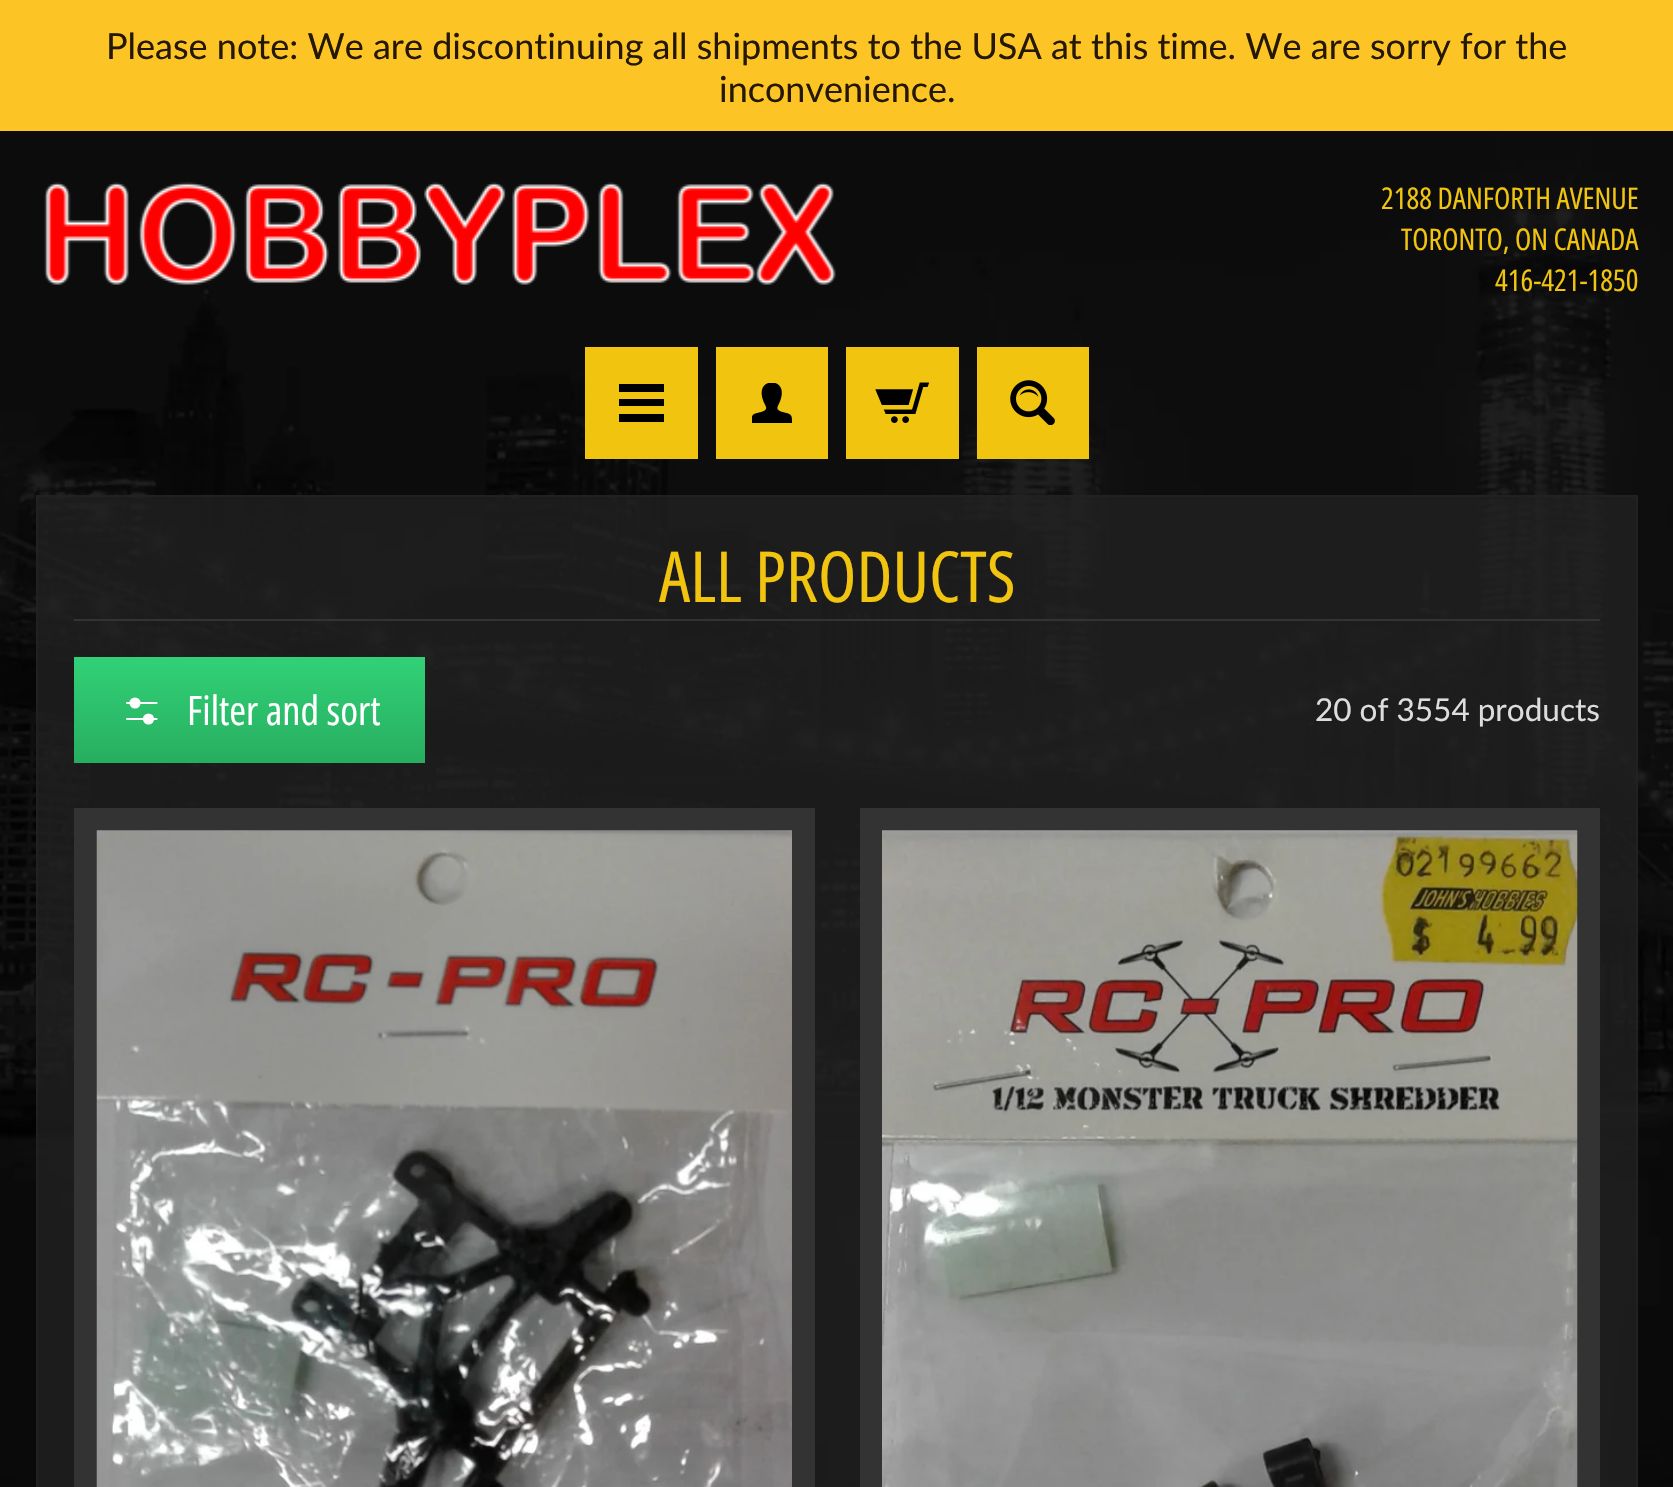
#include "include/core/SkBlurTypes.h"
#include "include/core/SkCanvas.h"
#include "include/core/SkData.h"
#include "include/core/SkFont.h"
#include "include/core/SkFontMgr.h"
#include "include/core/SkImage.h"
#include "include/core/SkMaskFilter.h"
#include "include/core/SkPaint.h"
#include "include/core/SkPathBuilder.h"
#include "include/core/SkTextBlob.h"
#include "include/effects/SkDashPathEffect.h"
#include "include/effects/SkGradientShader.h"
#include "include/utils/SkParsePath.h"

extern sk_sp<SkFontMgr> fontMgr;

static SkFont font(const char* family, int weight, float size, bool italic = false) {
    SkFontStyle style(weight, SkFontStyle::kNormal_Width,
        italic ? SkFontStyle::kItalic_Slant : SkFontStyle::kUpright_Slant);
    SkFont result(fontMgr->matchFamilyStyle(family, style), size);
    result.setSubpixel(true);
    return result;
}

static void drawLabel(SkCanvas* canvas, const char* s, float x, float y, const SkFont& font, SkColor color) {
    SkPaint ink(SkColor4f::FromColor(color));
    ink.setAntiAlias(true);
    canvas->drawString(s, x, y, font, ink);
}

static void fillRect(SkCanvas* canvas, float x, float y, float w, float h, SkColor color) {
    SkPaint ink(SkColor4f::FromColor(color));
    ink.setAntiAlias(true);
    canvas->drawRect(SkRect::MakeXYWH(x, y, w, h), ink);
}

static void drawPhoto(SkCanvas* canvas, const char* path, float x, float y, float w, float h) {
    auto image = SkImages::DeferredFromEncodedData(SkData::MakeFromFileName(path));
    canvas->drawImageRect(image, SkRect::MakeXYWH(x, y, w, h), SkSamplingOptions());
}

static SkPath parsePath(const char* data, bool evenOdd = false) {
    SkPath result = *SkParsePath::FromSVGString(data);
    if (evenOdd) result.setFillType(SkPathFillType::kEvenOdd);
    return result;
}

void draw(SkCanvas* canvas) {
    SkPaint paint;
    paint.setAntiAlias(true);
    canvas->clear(0xFFFFFFFF);
    drawPhoto(canvas, "assets/img1.png", 0, 131, 1673, 1356);
    fillRect(canvas, 0, 0, 1673, 131, 0xFFFDC425);
    SkFont font1 = font("Lato", 400, 36);
    drawLabel(canvas, "Please note: We are discontinuing all shipments to the USA at this time. We are sorry for the", 106, 59, font1, 0xFF251800);
    drawLabel(canvas, "inconvenience.", 719, 102, font1, 0xFF251800);
    drawPhoto(canvas, "assets/img2.png", 44, 182, 792, 103);
    SkFont font2 = font("Open Sans Condensed", 400, 29.9f);
    drawLabel(canvas, "2188 DANFORTH AVENUE", 1381, 209, font2, 0xFFF1C40F);
    drawLabel(canvas, "TORONTO, ON CANADA", 1401, 250, font2, 0xFFF1C40F);
    drawLabel(canvas, "416-421-1850", 1495, 291, font2, 0xFFF1C40F);
    fillRect(canvas, 585, 347, 113, 112, 0xFFF1C40F);
    paint.setColor(0xFF000000);
    canvas->drawPath(parsePath("M664 392H619V384H664ZM664 399H619V406H664ZM664 414H619V422H664Z"), paint);
    fillRect(canvas, 716, 347, 112, 112, 0xFFF1C40F);
    drawPhoto(canvas, "assets/img3.png", 752, 383, 40, 40);
    fillRect(canvas, 846, 347, 113, 112, 0xFFF1C40F);
    drawPhoto(canvas, "assets/img4.png", 875, 382, 54, 41);
    fillRect(canvas, 977, 347, 112, 112, 0xFFF1C40F);
    drawPhoto(canvas, "assets/img5.png", 1010, 380, 45, 45);
    fillRect(canvas, 36, 495, 1602, 992, 0xBF222222);
    paint.setStroke(true);
    paint.setStrokeWidth(2);
    paint.setColor(0xB3222222);
    canvas->drawRect(SkRect::MakeXYWH(37, 496, 1600, 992), paint);
    fillRect(canvas, 74, 619, 1526, 2, 0xFF333333);
    SkFont font3 = font("Open Sans Condensed", 400, 70.5f);
    drawLabel(canvas, "ALL PRODUCTS", 659, 602, font3, 0xFFF1C40F);
    paint.setStroke(false);
    {
        const SkColor colors[] = {0xFF32D177, 0xFF27AE60};
        const float stops[] = {0, 1};
        const SkPoint ends[] = {{250, 657}, {250, 763}};
        paint.setShader(SkGradientShader::MakeLinear(ends, colors, stops, 2, SkTileMode::kClamp));
        paint.setAlpha(255);
    }
    canvas->drawRect(SkRect::MakeXYWH(74, 657, 351, 106), paint);
    paint.setStroke(true);
    paint.setStrokeWidth(2.2f);
    paint.setStrokeCap(SkPaint::kRound_Cap);
    paint.setShader(nullptr);
    paint.setColor(0xFFFFFFFF);
    canvas->drawPath(parsePath("M156.5 703H127M156.5 719H127"), paint);
    paint.setStroke(false);
    canvas->drawCircle(148.5f, 719, 4.5f, paint);
    paint.setStroke(true);
    paint.setStrokeCap(SkPaint::kButt_Cap);
    canvas->drawCircle(148.5f, 719, 4.5f, paint);
    paint.setStroke(false);
    canvas->drawCircle(135, 703, 4.5f, paint);
    paint.setStroke(true);
    canvas->drawCircle(135, 703, 4.5f, paint);
    SkFont font4 = font("Open Sans Condensed", 400, 40.5f);
    drawLabel(canvas, "Filter and sort", 187, 725, font4, 0xFFFFFFFF);
    SkFont font5 = font("Lato", 400, 31.5f);
    drawLabel(canvas, "20 of 3554 products", 1315, 721, font5, 0xFFDDDDDD);
    fillRect(canvas, 74, 808, 741, 679, 0xFF333333);
    drawPhoto(canvas, "assets/img6.png", 96, 830, 696, 657);
    fillRect(canvas, 860, 808, 740, 679, 0xFF333333);
    drawPhoto(canvas, "assets/img7.png", 882, 830, 696, 657);
}
